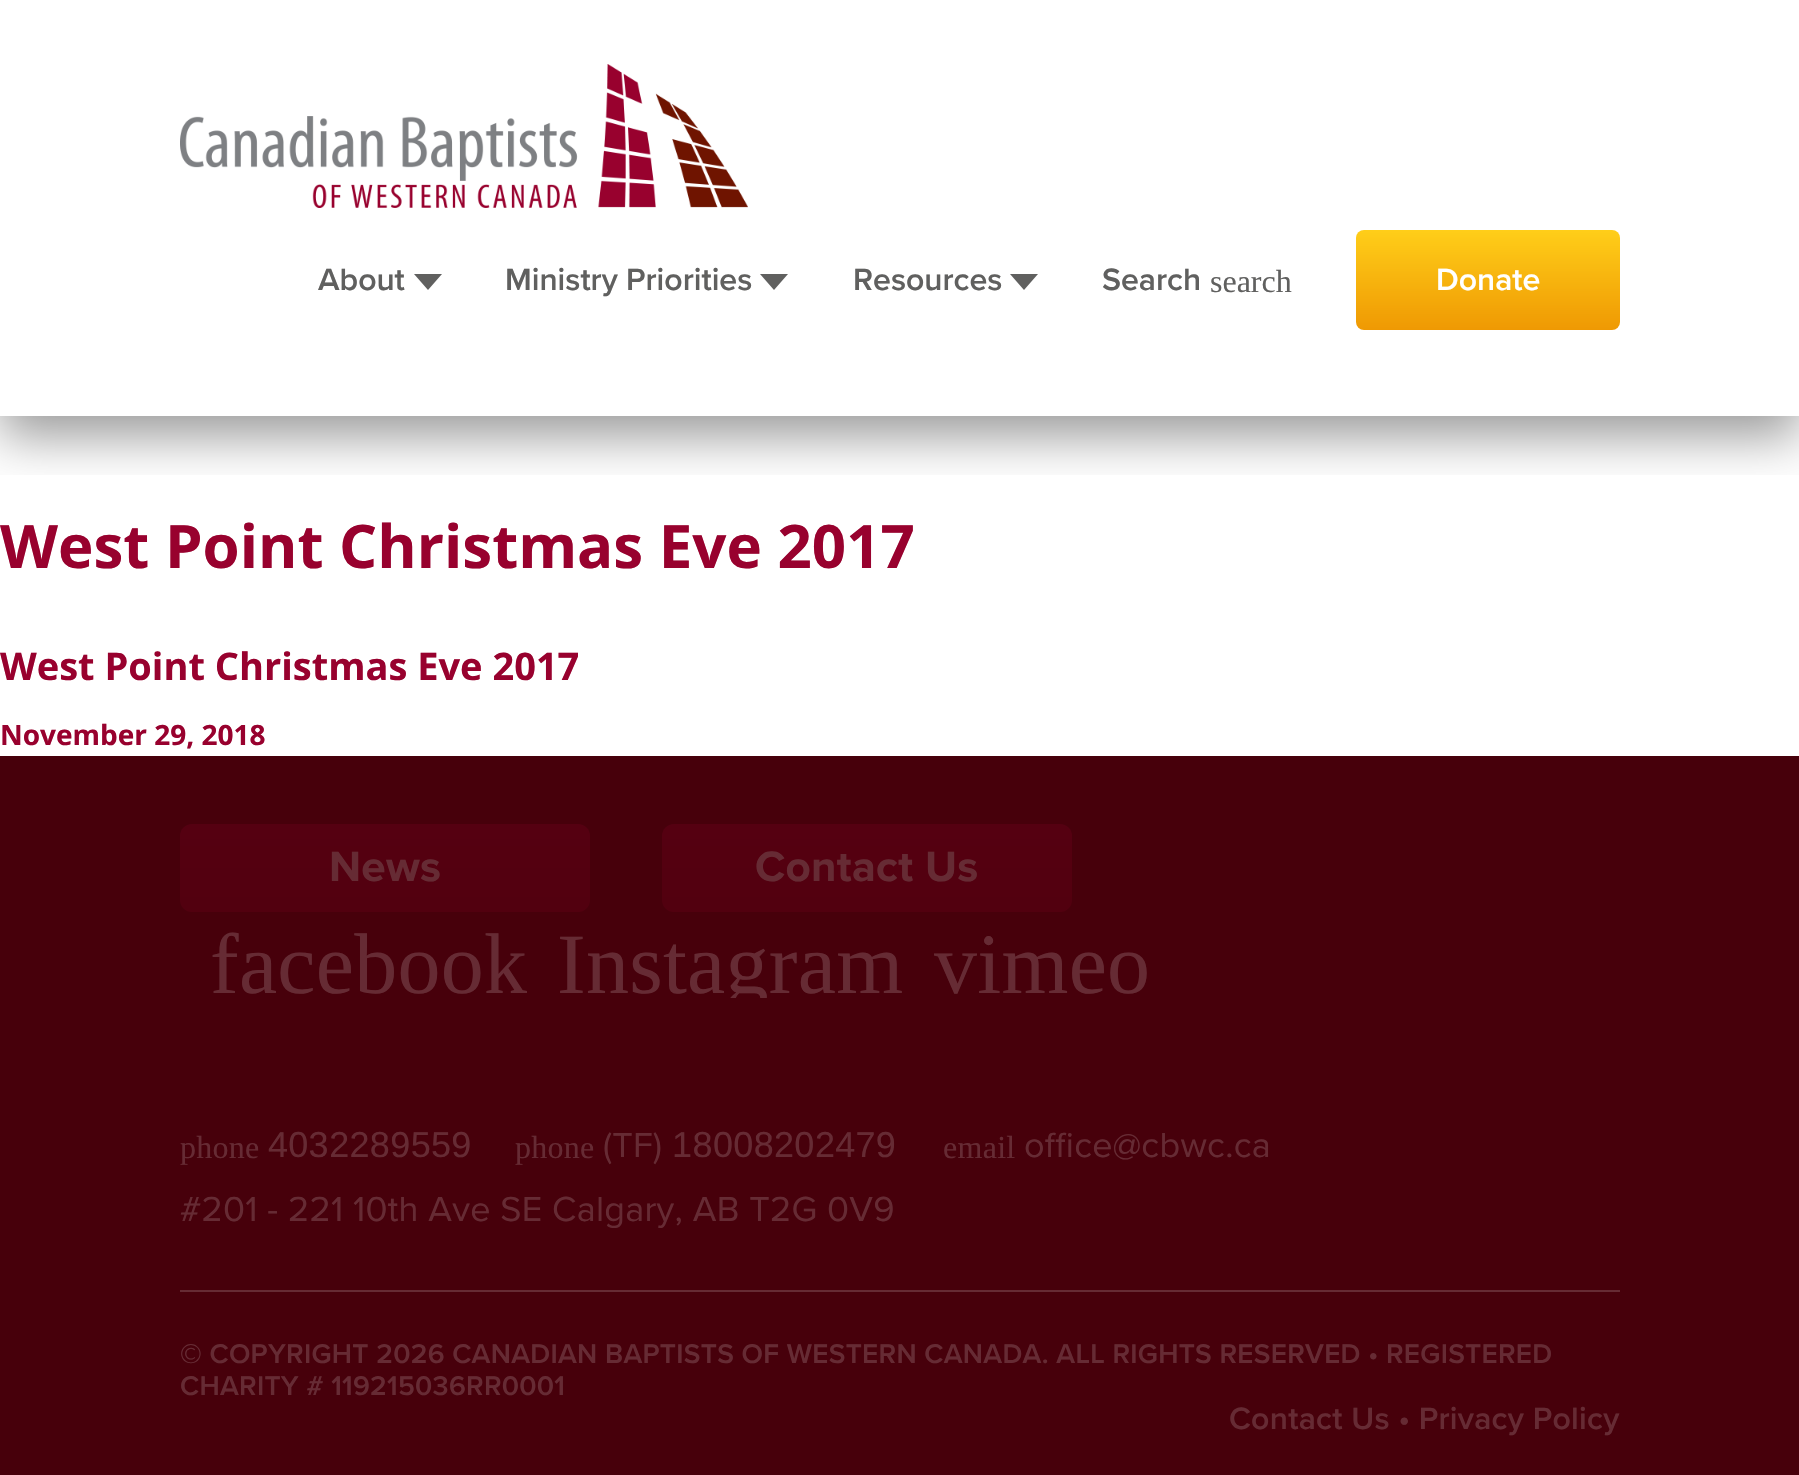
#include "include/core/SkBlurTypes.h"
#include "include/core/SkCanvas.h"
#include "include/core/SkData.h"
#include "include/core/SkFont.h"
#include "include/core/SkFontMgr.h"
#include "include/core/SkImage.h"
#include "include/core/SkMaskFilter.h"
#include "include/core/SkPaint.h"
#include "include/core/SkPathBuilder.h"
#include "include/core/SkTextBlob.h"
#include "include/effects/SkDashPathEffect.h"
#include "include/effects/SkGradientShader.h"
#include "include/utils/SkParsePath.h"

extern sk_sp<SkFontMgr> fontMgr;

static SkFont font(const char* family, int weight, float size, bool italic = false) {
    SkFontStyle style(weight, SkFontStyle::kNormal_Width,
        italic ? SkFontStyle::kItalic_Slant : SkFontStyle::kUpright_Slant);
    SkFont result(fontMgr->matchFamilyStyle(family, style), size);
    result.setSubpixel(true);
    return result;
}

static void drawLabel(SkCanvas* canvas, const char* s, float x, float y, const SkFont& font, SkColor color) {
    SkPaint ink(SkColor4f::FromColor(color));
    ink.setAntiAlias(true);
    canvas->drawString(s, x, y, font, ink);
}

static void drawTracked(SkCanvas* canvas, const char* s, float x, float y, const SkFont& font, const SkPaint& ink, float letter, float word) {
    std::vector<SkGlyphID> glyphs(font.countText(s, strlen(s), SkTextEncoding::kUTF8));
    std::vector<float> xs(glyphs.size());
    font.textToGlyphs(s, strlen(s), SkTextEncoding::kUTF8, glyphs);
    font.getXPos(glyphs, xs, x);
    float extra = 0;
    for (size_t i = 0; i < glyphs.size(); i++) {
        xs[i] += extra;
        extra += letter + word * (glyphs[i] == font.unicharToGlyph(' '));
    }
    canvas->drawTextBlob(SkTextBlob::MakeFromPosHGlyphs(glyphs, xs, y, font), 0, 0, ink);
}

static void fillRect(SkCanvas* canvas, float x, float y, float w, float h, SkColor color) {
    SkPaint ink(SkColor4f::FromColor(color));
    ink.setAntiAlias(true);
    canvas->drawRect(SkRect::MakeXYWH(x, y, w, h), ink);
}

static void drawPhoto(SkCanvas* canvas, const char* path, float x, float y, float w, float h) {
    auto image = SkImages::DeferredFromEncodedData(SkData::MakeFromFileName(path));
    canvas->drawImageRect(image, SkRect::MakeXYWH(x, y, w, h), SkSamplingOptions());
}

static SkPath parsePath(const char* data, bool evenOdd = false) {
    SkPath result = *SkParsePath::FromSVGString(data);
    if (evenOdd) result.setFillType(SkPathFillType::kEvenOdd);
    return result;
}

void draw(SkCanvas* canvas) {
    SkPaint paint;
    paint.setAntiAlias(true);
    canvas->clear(0xFFFFFFFF);
    canvas->save();
    canvas->clipRect(SkRect::MakeXYWH(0, 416, 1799, 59));
    paint.setColor(0x66000000);
    paint.setMaskFilter(SkMaskFilter::MakeBlur(kNormal_SkBlurStyle, 24));
    canvas->drawRect(SkRect::MakeXYWH(0, 20, 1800, 416), paint);
    paint.setMaskFilter(nullptr);
    canvas->restore();
    drawPhoto(canvas, "assets/img1.png", 180, 64, 568, 144);
    SkFont font1 = font("Proxima Nova", 600, 32);
    drawLabel(canvas, "About", 318, 290, font1, 0xFF60605F);
    paint.setColor(0xFF60605F);
    canvas->drawPath(parsePath("M414 274H442L428 290Z"), paint);
    drawLabel(canvas, "Ministry Priorities", 505, 290, font1, 0xFF60605F);
    canvas->drawPath(parsePath("M760 274H788L774 290Z"), paint);
    drawLabel(canvas, "Resources", 853, 290, font1, 0xFF60605F);
    canvas->drawPath(parsePath("M1010 274H1038L1024 290Z"), paint);
    drawLabel(canvas, "Search", 1102, 290, font1, 0xFF60605F);
    SkFont font2 = font("Liberation Serif", 400, 32);
    drawLabel(canvas, "search", 1210, 292, font2, 0xFF60605F);
    {
        const SkColor colors[] = {0xFFFFCE19, 0xFFEF9903};
        const float stops[] = {0, 1};
        const SkPoint ends[] = {{1488, 230}, {1488, 330}};
        paint.setShader(SkGradientShader::MakeLinear(ends, colors, stops, 2, SkTileMode::kClamp));
        paint.setAlpha(255);
    }
    canvas->drawRoundRect(SkRect::MakeXYWH(1356, 230, 264, 100), 8, 8, paint);
    drawLabel(canvas, "Donate", 1436, 290, font1, 0xFFFFFFFF);
    SkFont font3 = font("Open Sans", 700, 60);
    drawLabel(canvas, "West Point Christmas Eve 2017", 0, 568, font3, 0xFF98012E);
    SkFont font4 = font("Open Sans", 700, 38);
    drawLabel(canvas, "West Point Christmas Eve 2017", 0, 680, font4, 0xFF98012E);
    SkFont font5 = font("Open Sans", 700, 28);
    drawLabel(canvas, "November 29, 2018", 0, 745, font5, 0xFF98012E);
    fillRect(canvas, 0, 756, 1799, 719, 0xFF47000B);
    {
        const SkColor colors[] = {0xFF550011, 0xFF52000F};
        const float stops[] = {0, 1};
        const SkPoint ends[] = {{385, 824}, {385, 912}};
        paint.setShader(SkGradientShader::MakeLinear(ends, colors, stops, 2, SkTileMode::kClamp));
        paint.setAlpha(255);
    }
    canvas->drawRoundRect(SkRect::MakeXYWH(180, 824, 410, 88), 12, 12, paint);
    SkFont font6 = font("Proxima Nova", 700, 44);
    paint.setShader(nullptr);
    paint.setColor(0xFF662B34);
    drawTracked(canvas, "News", 329, 881, font6, paint, 0.28f, 0);
    {
        const SkColor colors[] = {0xFF550011, 0xFF52000F};
        const float stops[] = {0, 1};
        const SkPoint ends[] = {{867, 824}, {867, 912}};
        paint.setShader(SkGradientShader::MakeLinear(ends, colors, stops, 2, SkTileMode::kClamp));
        paint.setAlpha(255);
    }
    canvas->drawRoundRect(SkRect::MakeXYWH(662, 824, 410, 88), 12, 12, paint);
    paint.setShader(nullptr);
    paint.setColor(0xFF662B34);
    drawTracked(canvas, "Contact Us", 755, 881, font6, paint, 0.28f, 0);
    SkFont font7 = font("Liberation Serif", 400, 86);
    drawTracked(canvas, "facebook", 210, 993, font7, paint, 0.28f, 0);
    canvas->save();
    canvas->clipRect(SkRect::MakeXYWH(180, 912, 970, 86));
    drawTracked(canvas, "Instagram", 557, 993, font7, paint, 0.28f, 0);
    canvas->restore();
    drawTracked(canvas, "vimeo", 934, 993, font7, paint, 0.28f, 0);
    drawTracked(canvas, "phone", 180, 1158, font2, paint, 0.28f, 0);
    SkFont font8 = font("Liberation Sans", 400, 36);
    drawTracked(canvas, "403‑228‑9559", 268, 1157, font8, paint, 0.28f, 0);
    drawTracked(canvas, "phone", 515, 1158, font2, paint, 0.28f, 0);
    SkFont font9 = font("Proxima Nova", 400, 36);
    drawTracked(canvas, "(TF)", 603, 1157, font9, paint, 0.28f, 0);
    drawTracked(canvas, "1‑800‑820‑2479", 672, 1157, font8, paint, 0.28f, 0);
    drawTracked(canvas, "email", 943, 1158, font2, paint, 0.28f, 0);
    drawTracked(canvas, "office@cbwc.ca", 1024, 1157, font9, paint, 0.28f, 0);
    drawTracked(canvas, "#201 - 221 10th Ave SE Calgary, AB T2G 0V9", 180, 1221, font9, paint, 0.28f, 0);
    fillRect(canvas, 180, 1290, 1440, 2, 0xFF662B34);
    SkFont font10 = font("Proxima Nova", 600, 28);
    drawTracked(canvas, "© COPYRIGHT 2026 CANADIAN BAPTISTS OF WESTERN CANADA. ALL RIGHTS RESERVED • REGISTERED", 180, 1363, font10, paint, 0.28f, 0);
    drawTracked(canvas, "CHARITY # 119215036RR0001", 180, 1395, font10, paint, 0.28f, 0);
    drawTracked(canvas, "Contact Us • Privacy Policy", 1229, 1429, font1, paint, 0.28f, 0);
}
